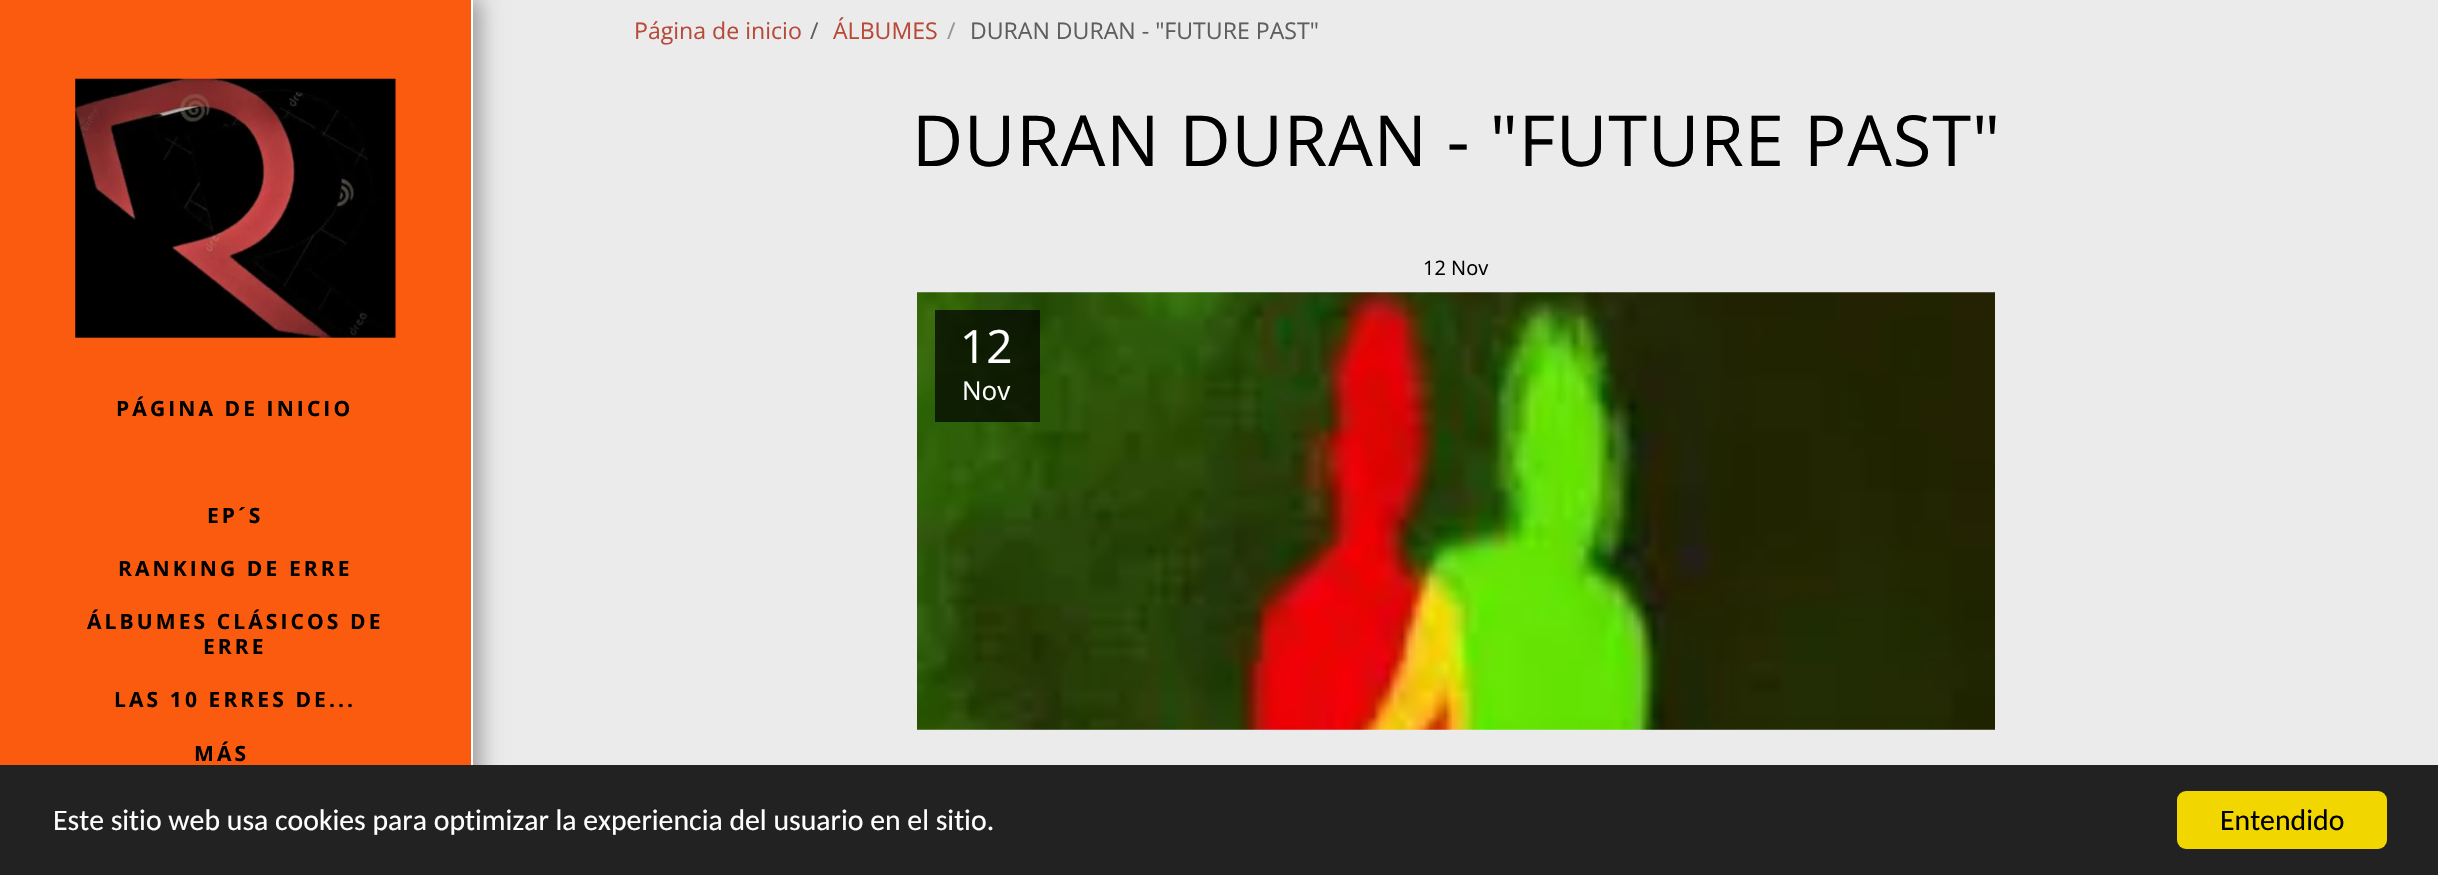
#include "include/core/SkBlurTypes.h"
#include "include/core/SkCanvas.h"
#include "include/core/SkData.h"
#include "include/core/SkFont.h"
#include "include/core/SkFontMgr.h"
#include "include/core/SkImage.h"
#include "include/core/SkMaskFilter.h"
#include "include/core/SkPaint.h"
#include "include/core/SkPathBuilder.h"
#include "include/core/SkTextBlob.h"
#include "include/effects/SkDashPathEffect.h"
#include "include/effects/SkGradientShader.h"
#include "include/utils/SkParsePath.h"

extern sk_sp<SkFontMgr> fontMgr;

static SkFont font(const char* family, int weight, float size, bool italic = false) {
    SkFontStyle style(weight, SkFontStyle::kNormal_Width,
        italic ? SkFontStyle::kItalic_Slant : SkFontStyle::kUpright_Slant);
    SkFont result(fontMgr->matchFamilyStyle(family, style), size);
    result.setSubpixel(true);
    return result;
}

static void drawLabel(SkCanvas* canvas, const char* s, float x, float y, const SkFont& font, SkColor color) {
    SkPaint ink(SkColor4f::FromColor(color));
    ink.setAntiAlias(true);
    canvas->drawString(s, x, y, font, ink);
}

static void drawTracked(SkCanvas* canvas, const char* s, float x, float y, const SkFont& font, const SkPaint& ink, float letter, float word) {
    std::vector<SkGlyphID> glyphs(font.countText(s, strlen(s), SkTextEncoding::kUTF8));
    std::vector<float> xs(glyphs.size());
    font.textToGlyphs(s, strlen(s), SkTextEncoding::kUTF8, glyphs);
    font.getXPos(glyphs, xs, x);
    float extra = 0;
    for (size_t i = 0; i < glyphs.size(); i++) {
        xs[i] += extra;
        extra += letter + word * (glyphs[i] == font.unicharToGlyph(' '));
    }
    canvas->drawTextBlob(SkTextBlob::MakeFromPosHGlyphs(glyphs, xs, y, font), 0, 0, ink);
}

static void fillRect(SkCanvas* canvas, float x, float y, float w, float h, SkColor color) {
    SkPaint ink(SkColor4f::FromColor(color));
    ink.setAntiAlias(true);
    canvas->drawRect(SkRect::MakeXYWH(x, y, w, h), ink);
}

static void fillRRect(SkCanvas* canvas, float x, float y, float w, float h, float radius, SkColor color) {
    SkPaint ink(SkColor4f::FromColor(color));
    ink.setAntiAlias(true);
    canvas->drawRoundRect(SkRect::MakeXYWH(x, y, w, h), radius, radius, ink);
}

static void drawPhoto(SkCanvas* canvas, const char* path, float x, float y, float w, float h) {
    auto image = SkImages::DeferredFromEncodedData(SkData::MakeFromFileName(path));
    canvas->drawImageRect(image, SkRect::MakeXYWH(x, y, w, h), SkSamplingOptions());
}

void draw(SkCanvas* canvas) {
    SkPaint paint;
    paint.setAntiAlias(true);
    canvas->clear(0xFFEBEBEB);
    SkFont font1 = font("Open Sans", 400, 23.1f);
    drawLabel(canvas, "Página de inicio", 634, 39, font1, 0xFFB84A39);
    drawLabel(canvas, "/", 810, 39, font1, 0xFF5E5E5E);
    drawLabel(canvas, "ÁLBUMES", 833, 39, font1, 0xFFB84A39);
    drawLabel(canvas, "/", 947, 39, font1, 0xFF969696);
    drawLabel(canvas, "DURAN DURAN - \"FUTURE PAST\"", 970, 39, font1, 0xFF5E5E5E);
    SkFont font2 = font("Open Sans", 400, 70.5f);
    paint.setColor(0xFF000000);
    drawTracked(canvas, "DURAN DURAN - \"FUTURE PAST\"", 912, 166, font2, paint, 0.9f, 0);
    SkFont font3 = font("Open Sans", 400, 20);
    drawLabel(canvas, "12 Nov", 1423, 275, font3, 0xFF000000);
    drawPhoto(canvas, "assets/img1.png", 917, 292, 1078, 438);
    fillRect(canvas, 935, 310, 105, 112, 0xB3000000);
    SkFont font4 = font("Open Sans", 400, 46);
    drawLabel(canvas, "12", 960, 363, font4, 0xFFFFFFFF);
    SkFont font5 = font("Open Sans", 400, 26);
    drawLabel(canvas, "Nov", 962, 400, font5, 0xFFFFFFFF);
    paint.setColor(0x59000000);
    paint.setMaskFilter(SkMaskFilter::MakeBlur(kNormal_SkBlurStyle, 10.5f));
    canvas->drawRect(SkRect::MakeXYWH(0, -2, 480, 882), paint);
    paint.setMaskFilter(nullptr);
    fillRect(canvas, 0, 0, 471, 765, 0xFFFA5B0F);
    fillRect(canvas, 471, 0, 2, 765, 0xFFFFFFFF);
    drawPhoto(canvas, "assets/img2.png", 75, 78, 322, 260);
    SkFont font6 = font("Open Sans", 700, 21);
    paint.setColor(0xFF000000);
    drawTracked(canvas, "PÁGINA DE INICIO", 116, 416, font6, paint, 3.1f, 0);
    drawTracked(canvas, "EP´S", 207, 523, font6, paint, 3.1f, 0);
    drawTracked(canvas, "RANKING DE ERRE", 118, 576, font6, paint, 3.1f, 0);
    drawTracked(canvas, "ÁLBUMES CLÁSICOS DE", 87, 629, font6, paint, 3.1f, 0);
    drawTracked(canvas, "ERRE", 203, 654, font6, paint, 3.1f, 0);
    drawTracked(canvas, "LAS 10 ERRES DE...", 114, 707, font6, paint, 3.1f, 0);
    drawTracked(canvas, "MÁS", 194, 761, font6, paint, 3.1f, 0);
    fillRect(canvas, 0, 765, 2438, 110, 0xFF222222);
    SkFont font7 = font("Carlito", 400, 29.75f);
    drawLabel(canvas, "Este sitio web usa cookies para optimizar la experiencia del usuario en el sitio.", 53, 830, font7, 0xFFFFFFFF);
    fillRRect(canvas, 2177, 791, 210, 58, 9, 0xFFF1D600);
    drawLabel(canvas, "Entendido", 2220, 830, font7, 0xFF000000);
}
